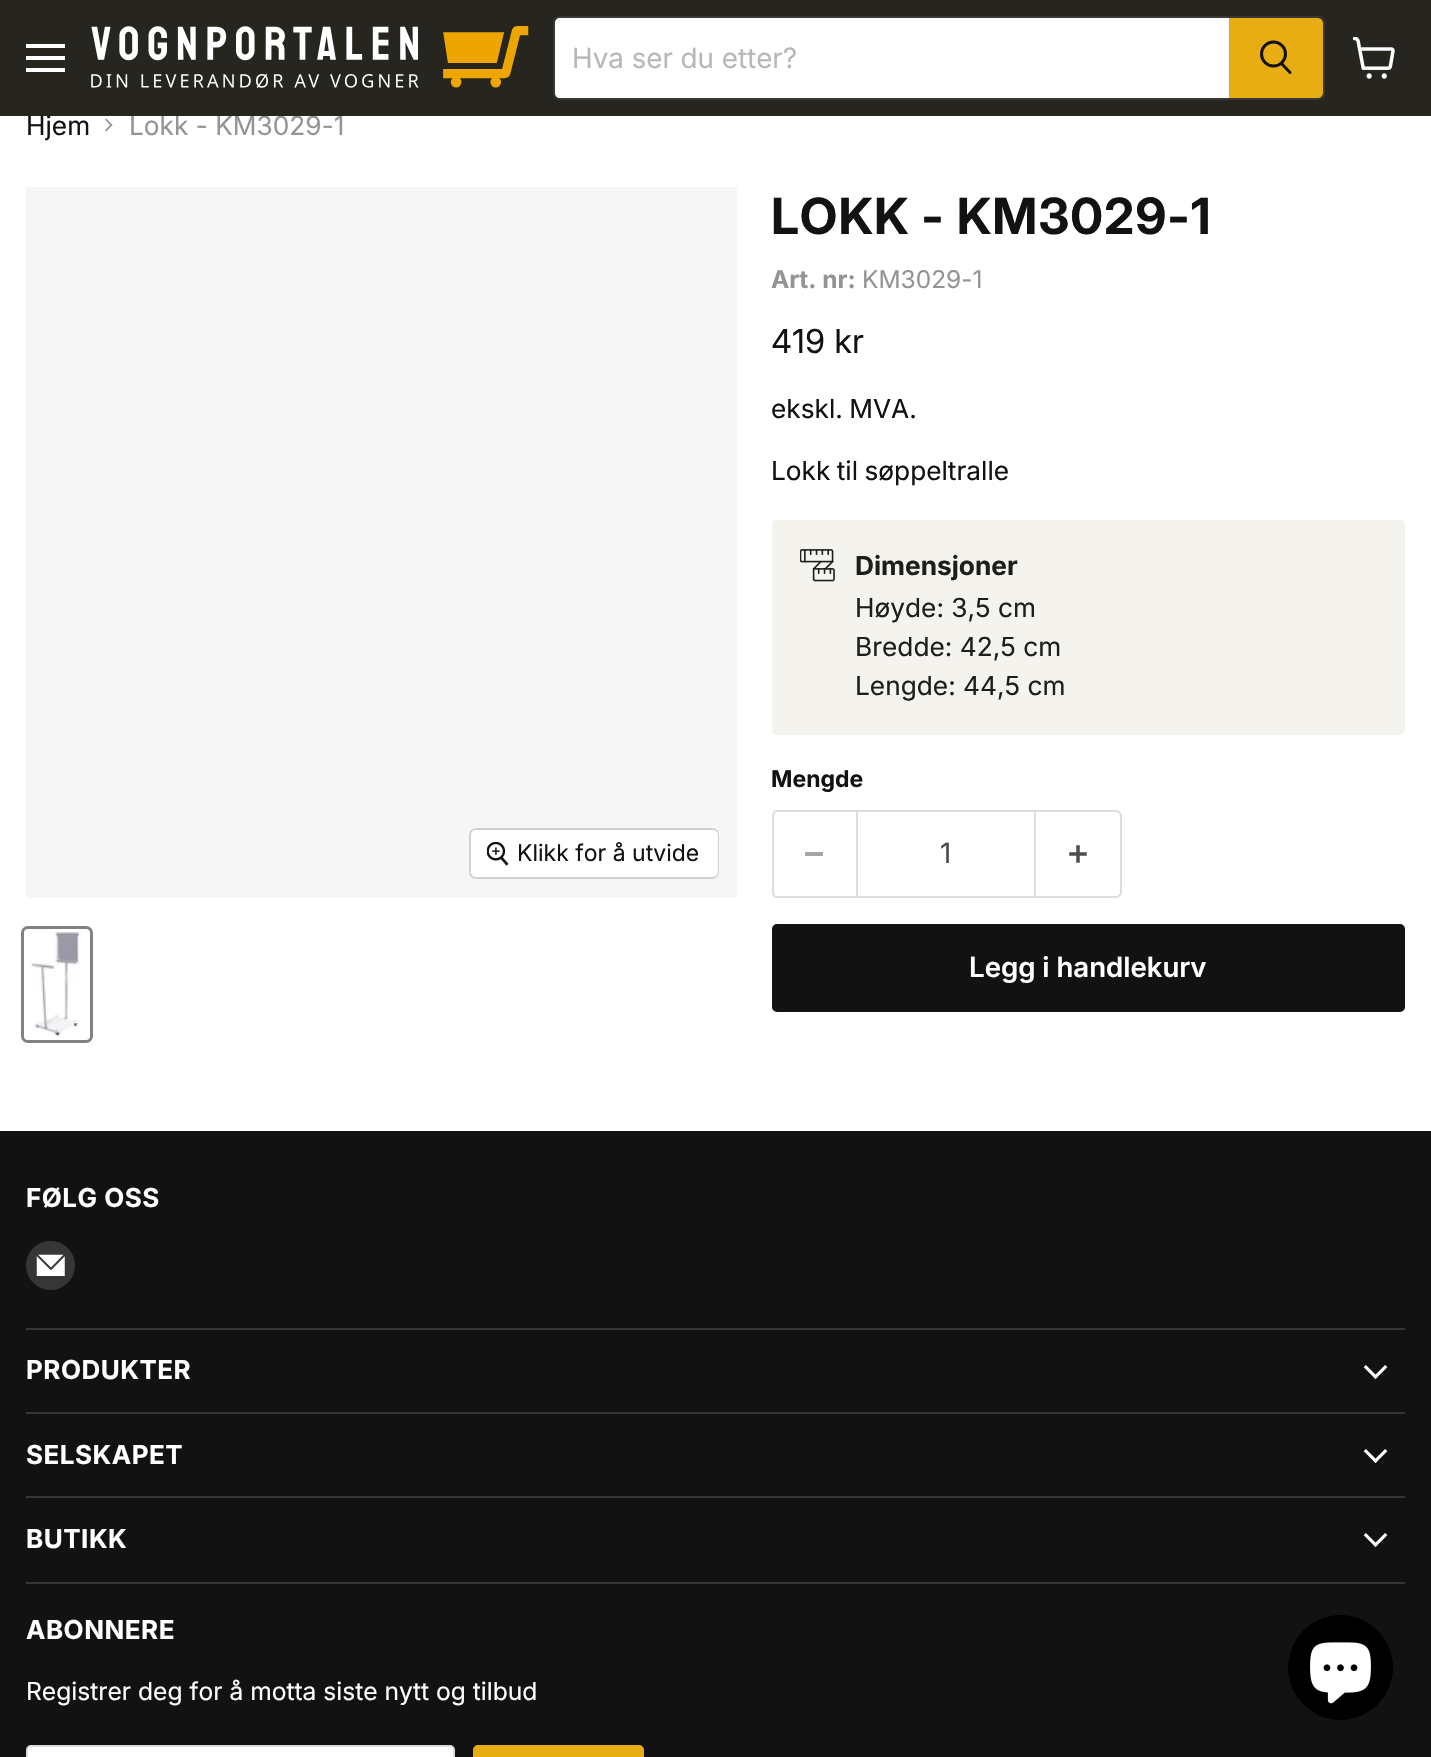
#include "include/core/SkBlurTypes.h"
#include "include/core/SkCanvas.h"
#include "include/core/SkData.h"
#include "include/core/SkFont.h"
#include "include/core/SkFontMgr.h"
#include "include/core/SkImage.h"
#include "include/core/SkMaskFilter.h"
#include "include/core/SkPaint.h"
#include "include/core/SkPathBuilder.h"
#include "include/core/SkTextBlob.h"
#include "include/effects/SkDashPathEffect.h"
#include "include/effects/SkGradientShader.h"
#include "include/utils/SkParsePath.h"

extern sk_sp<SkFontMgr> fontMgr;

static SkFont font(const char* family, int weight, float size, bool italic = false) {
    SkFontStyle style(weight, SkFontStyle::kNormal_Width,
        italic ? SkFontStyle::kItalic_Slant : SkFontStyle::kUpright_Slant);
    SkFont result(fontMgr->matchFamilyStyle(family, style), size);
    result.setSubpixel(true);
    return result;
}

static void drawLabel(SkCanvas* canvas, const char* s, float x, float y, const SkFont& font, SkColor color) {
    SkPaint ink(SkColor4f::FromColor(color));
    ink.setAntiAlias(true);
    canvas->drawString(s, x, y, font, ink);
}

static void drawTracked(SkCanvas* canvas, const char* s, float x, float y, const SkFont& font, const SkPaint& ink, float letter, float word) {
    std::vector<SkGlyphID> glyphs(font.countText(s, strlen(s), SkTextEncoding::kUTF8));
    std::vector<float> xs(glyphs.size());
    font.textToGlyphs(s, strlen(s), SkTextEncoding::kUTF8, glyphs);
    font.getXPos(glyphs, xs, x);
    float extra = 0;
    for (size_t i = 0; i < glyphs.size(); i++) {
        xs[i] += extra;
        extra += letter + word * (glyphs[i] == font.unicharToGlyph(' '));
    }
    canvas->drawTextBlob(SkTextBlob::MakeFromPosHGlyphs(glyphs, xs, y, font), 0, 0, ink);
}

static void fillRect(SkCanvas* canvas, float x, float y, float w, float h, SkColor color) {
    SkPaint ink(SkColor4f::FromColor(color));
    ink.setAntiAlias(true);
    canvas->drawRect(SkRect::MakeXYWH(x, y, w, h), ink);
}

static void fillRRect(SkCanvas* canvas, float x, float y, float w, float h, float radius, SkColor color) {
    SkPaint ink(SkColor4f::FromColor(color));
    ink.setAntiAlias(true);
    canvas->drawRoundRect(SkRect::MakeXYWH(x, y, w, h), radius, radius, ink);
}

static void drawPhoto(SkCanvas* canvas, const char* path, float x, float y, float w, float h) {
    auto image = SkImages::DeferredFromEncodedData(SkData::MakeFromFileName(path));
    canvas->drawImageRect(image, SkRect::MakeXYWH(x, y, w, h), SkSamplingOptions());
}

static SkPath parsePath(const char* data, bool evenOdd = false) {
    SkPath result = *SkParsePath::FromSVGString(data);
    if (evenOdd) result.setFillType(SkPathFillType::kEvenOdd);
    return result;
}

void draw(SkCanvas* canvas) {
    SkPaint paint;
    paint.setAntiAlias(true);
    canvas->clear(0xFFFFFFFF);
    SkFont font1 = font("Inter", 400, 26.25f);
    drawLabel(canvas, "Hjem", 26, 135, font1, 0xFF121212);
    drawLabel(canvas, "Lokk - KM3029-1", 129, 135, font1, 0xFF949494);
    fillRect(canvas, 0, 0, 1431, 116, 0xFF27251F);
    fillRect(canvas, 26, 44, 39, 4, 0xFFFFFFFF);
    fillRect(canvas, 26, 56, 39, 4, 0xFFFFFFFF);
    fillRect(canvas, 26, 68, 39, 4, 0xFFFFFFFF);
    drawPhoto(canvas, "assets/img1.png", 91, 26, 438, 62);
    paint.setStroke(true);
    paint.setStrokeWidth(2);
    paint.setColor(0x33808080);
    canvas->drawRoundRect(SkRect::MakeXYWH(554, 17, 770, 82), 6, 6, paint);
    paint.setStroke(false);
    paint.setColor(0xFFFFFFFF);
    canvas->drawPath(parsePath("M560 18H1229V98H560C557 98 555 96 555 93V23C555 20 557 18 560 18Z"), paint);
    SkFont font2 = font("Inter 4", 400, 28);
    drawLabel(canvas, "Hva ser du etter?", 572, 68, font2, 0xFFB8B8B8);
    paint.setColor(0xFFE9AD14);
    canvas->drawPath(parsePath("M1230 19H1318C1320 19 1322 21 1322 23V93C1322 95 1320 97 1318 97H1230Z"), paint);
    paint.setStroke(true);
    canvas->drawPath(parsePath("M1230 19H1318C1320 19 1322 21 1322 23V93C1322 95 1320 97 1318 97H1230Z"), paint);
    paint.setStrokeWidth(3);
    paint.setStrokeCap(SkPaint::kRound_Cap);
    paint.setColor(0xFF121212);
    canvas->drawPath(parsePath("M1290 72.5L1282 64"), paint);
    paint.setStrokeCap(SkPaint::kButt_Cap);
    canvas->drawCircle(1273.5f, 54, 12, paint);
    drawPhoto(canvas, "assets/img2.png", 1353, 37, 42, 42);
    drawPhoto(canvas, "assets/img3.png", 105, 118, 8, 14);
    fillRect(canvas, 26, 187, 711, 711, 0xFFF6F6F6);
    paint.setStrokeWidth(2);
    paint.setColor(0xFFD1D1D1);
    canvas->drawRoundRect(SkRect::MakeXYWH(470, 829, 248, 49), 6, 6, paint);
    fillRRect(canvas, 471, 830, 247, 47, 5, 0xE6FFFFFF);
    drawPhoto(canvas, "assets/img4.png", 487, 842, 22, 24);
    SkFont font3 = font("Inter", 400, 23);
    drawLabel(canvas, "Klikk for å utvide", 517, 861, font3, 0xFF121212);
    paint.setStrokeWidth(3);
    paint.setColor(0xFF818181);
    canvas->drawRoundRect(SkRect::MakeXYWH(22.5f, 927.5f, 69, 114), 5.5f, 5.5f, paint);
    drawPhoto(canvas, "assets/img5.png", 31, 932, 50, 104);
    SkFont font4 = font("Inter", 700, 49.9f);
    paint.setStroke(false);
    paint.setColor(0xFF121212);
    drawTracked(canvas, "LOKK - KM3029-1", 771, 234, font4, paint, 1, 0);
    SkFont font5 = font("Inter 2", 700, 24.5f);
    drawLabel(canvas, "Art. nr:", 771, 288, font5, 0xFF949494);
    SkFont font6 = font("Inter", 400, 24.5f);
    drawLabel(canvas, "KM3029-1", 862, 288, font6, 0xFF949494);
    SkFont font7 = font("Inter 2", 400, 33);
    drawLabel(canvas, "419 kr", 771, 353, font7, 0xFF121212);
    drawTracked(canvas, "ekskl. MVA.", 771, 418, font1, paint, 0, -1);
    drawTracked(canvas, "Lokk til søppeltralle", 771, 480, font1, paint, 0, -1);
    fillRRect(canvas, 772, 520, 633, 215, 5, 0xFFF5F3ED);
    drawPhoto(canvas, "assets/img6.png", 800, 549, 35, 33);
    SkFont font8 = font("Inter 2", 700, 26.25f);
    drawLabel(canvas, "Dimensjoner", 855, 575, font8, 0xFF1D1D1D);
    drawLabel(canvas, "Høyde: 3,5 cm", 855, 617, font1, 0xFF1D1D1D);
    drawLabel(canvas, "Bredde: 42,5 cm", 855, 656, font1, 0xFF1D1D1D);
    drawLabel(canvas, "Lengde: 44,5 cm", 855, 695, font1, 0xFF1D1D1D);
    SkFont font9 = font("Inter 2", 700, 23);
    drawLabel(canvas, "Mengde", 771, 787, font9, 0xFF121212);
    paint.setColor(0xFFDDDDDD);
    canvas->drawPath(parsePath("M777 810H856V898H777C774 898 772 895 772 892V816C772 813 774 810 777 810ZM777 812H856V896H777C775 896 774 894 774 892V816C774 814 775 812 777 812Z", true), paint);
    fillRect(canvas, 805, 852, 18, 4, 0xFFA6A6A6);
    paint.setStroke(true);
    paint.setStrokeWidth(2);
    canvas->drawRect(SkRect::MakeXYWH(857, 811, 178, 86), paint);
    SkFont font10 = font("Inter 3", 400, 27.75f);
    drawLabel(canvas, "1", 940, 863, font10, 0xFF4D4D4D);
    paint.setStroke(false);
    canvas->drawPath(parsePath("M1036 810H1116C1119 810 1122 813 1122 816V892C1122 895 1119 898 1116 898H1036ZM1036 812H1116C1118 812 1120 814 1120 816V892C1120 894 1118 896 1116 896H1036Z", true), paint);
    drawPhoto(canvas, "assets/img7.png", 1069, 845, 18, 18);
    paint.setColor(0xFF121212);
    canvas->drawRoundRect(SkRect::MakeXYWH(773, 925, 631, 86), 4, 4, paint);
    paint.setStroke(true);
    canvas->drawRoundRect(SkRect::MakeXYWH(773, 925, 631, 86), 4, 4, paint);
    SkFont font11 = font("Inter", 600, 27.75f);
    drawLabel(canvas, "Legg i handlekurv", 969, 977, font11, 0xFFFFFFFF);
    fillRect(canvas, 0, 1131, 1431, 626, 0xFF121212);
    fillRect(canvas, 26, 1328, 1379, 2, 0xFF363636);
    SkFont font12 = font("Inter 2", 700, 26);
    paint.setStroke(false);
    paint.setColor(0xFFFFFFFF);
    drawTracked(canvas, "FØLG OSS", 26, 1207, font12, paint, 0.5f, 0);
    paint.setColor(0xFF363636);
    canvas->drawCircle(50.5f, 1265.5f, 24.5f, paint);
    drawPhoto(canvas, "assets/img8.png", 36, 1254, 29, 22);
    fillRect(canvas, 26, 1412, 1379, 2, 0xFF363636);
    paint.setColor(0xFFFFFFFF);
    drawTracked(canvas, "PRODUKTER", 26, 1379, font12, paint, 0.5f, 0);
    drawPhoto(canvas, "assets/img9.png", 1363, 1365, 25, 14);
    fillRect(canvas, 26, 1496, 1379, 2, 0xFF363636);
    drawTracked(canvas, "SELSKAPET", 26, 1464, font12, paint, 0.5f, 0);
    drawPhoto(canvas, "assets/img9.png", 1363, 1449, 25, 14);
    fillRect(canvas, 26, 1582, 1379, 2, 0xFF363636);
    drawTracked(canvas, "BUTIKK", 26, 1548, font12, paint, 0.5f, 0);
    drawPhoto(canvas, "assets/img9.png", 1363, 1533, 25, 14);
    drawTracked(canvas, "ABONNERE", 26, 1639, font12, paint, 0.5f, 0);
    SkFont font13 = font("Inter", 400, 24.6f);
    drawLabel(canvas, "Registrer deg for å motta siste nytt og tilbud", 26, 1700, font13, 0xFFFFFFFF);
    canvas->drawRoundRect(SkRect::MakeXYWH(27, 1746, 427, 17), 4, 4, paint);
    paint.setStroke(true);
    paint.setColor(0xFFDDDDDD);
    canvas->drawRoundRect(SkRect::MakeXYWH(27, 1746, 427, 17), 4, 4, paint);
    paint.setStroke(false);
    paint.setColor(0xFFE9AD14);
    canvas->drawRoundRect(SkRect::MakeXYWH(474, 1746, 169, 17), 4, 4, paint);
    paint.setStroke(true);
    canvas->drawRoundRect(SkRect::MakeXYWH(474, 1746, 169, 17), 4, 4, paint);
    paint.setStroke(false);
    paint.setColor(0xFF000000);
    canvas->drawCircle(1340.5f, 1667.5f, 52.5f, paint);
    drawPhoto(canvas, "assets/img10.png", 1310, 1642, 61, 62);
}
